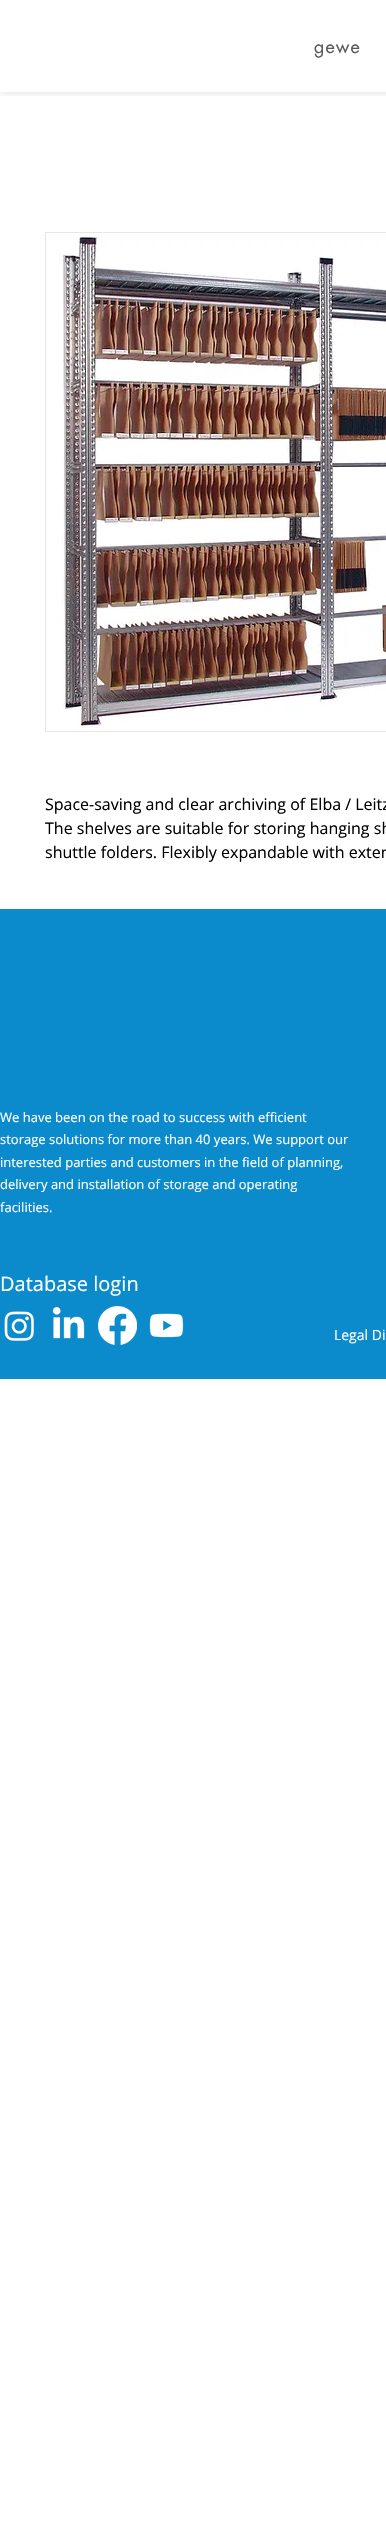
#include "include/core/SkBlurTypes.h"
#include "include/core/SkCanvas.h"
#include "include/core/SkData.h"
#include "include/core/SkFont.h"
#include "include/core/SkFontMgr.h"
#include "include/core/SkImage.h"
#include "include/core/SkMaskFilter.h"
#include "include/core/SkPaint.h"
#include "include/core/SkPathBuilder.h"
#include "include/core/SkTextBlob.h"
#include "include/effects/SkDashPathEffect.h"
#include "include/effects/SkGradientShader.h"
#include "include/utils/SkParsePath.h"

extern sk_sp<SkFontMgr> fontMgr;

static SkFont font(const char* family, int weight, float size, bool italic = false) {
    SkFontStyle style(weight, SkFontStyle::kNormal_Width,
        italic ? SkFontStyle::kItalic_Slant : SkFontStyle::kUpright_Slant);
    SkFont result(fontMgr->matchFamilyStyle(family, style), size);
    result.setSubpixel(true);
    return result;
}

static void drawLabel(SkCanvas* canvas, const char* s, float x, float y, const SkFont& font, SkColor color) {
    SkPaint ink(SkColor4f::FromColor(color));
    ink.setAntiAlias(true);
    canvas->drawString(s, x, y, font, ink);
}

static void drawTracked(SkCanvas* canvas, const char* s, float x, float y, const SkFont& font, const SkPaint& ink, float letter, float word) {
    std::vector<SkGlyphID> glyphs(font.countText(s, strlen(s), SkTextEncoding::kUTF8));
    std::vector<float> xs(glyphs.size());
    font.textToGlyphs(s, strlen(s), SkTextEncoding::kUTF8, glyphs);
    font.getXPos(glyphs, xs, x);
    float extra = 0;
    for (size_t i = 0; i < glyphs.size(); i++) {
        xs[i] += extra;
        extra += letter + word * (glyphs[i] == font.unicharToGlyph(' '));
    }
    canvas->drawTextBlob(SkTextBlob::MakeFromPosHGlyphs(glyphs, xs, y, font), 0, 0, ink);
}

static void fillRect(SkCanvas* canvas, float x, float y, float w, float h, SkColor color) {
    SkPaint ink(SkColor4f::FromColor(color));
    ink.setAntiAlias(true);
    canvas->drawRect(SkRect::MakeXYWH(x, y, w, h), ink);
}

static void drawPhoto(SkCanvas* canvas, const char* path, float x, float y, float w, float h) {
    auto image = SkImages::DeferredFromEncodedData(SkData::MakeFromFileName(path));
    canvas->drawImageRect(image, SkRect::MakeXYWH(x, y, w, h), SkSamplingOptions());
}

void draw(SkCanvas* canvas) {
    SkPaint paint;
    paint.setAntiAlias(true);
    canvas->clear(0xFFFFFFFF);
    canvas->save();
    canvas->clipRect(SkRect::MakeXYWH(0, 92, 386, 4));
    paint.setColor(0x24000000);
    paint.setMaskFilter(SkMaskFilter::MakeBlur(kNormal_SkBlurStyle, 4));
    canvas->drawRect(SkRect::MakeXYWH(0, 0, 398, 92), paint);
    paint.setMaskFilter(nullptr);
    canvas->restore();
    SkFont font1 = font("futura", 400, 18);
    paint.setColor(0xFF595959);
    drawTracked(canvas, "gewe", 314, 53, font1, paint, 1, 0);
    paint.setStroke(true);
    paint.setStrokeWidth(1);
    paint.setColor(0xFFE8E6E6);
    canvas->drawRect(SkRect::MakeXYWH(45.5f, 232.5f, 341, 499), paint);
    drawPhoto(canvas, "assets/img1.png", 62, 237, 324, 492);
    SkFont font2 = font("Open Sans", 400, 16);
    drawLabel(canvas, "Space-saving and clear archiving of Elba / Leitz", 45, 810, font2, 0xFF000000);
    drawLabel(canvas, "The shelves are suitable for storing hanging sh", 45, 834, font2, 0xFF000000);
    drawLabel(canvas, "shuttle folders. Flexibly expandable with exten", 45, 858, font2, 0xFF000000);
    fillRect(canvas, 0, 909, 386, 470, 0xFF0B8BCB);
    SkFont font3 = font("Open Sans", 400, 13);
    drawLabel(canvas, "We have been on the road to success with efficient", 0, 1122, font3, 0xFFFFFFFF);
    drawLabel(canvas, "storage solutions for more than 40 years. We support our", 0, 1144, font3, 0xFFFFFFFF);
    drawLabel(canvas, "interested parties and customers in the field of planning,", 0, 1167, font3, 0xFFFFFFFF);
    drawLabel(canvas, "delivery and installation of storage and operating", 0, 1189, font3, 0xFFFFFFFF);
    drawLabel(canvas, "facilities.", 0, 1212, font3, 0xFFFFFFFF);
    SkFont font4 = font("Open Sans", 400, 20);
    drawLabel(canvas, "Database login", 0, 1291, font4, 0xFFFFFFFF);
    drawPhoto(canvas, "assets/img2.png", 4, 1311, 30, 30);
    drawPhoto(canvas, "assets/img3.png", 52, 1306, 33, 33);
    drawPhoto(canvas, "assets/img4.png", 98, 1306, 39, 39);
    drawPhoto(canvas, "assets/img5.png", 149, 1313, 35, 25);
    SkFont font5 = font("Open Sans", 400, 14);
    drawLabel(canvas, "Legal Di", 334, 1340, font5, 0xFFFFFFFF);
}
